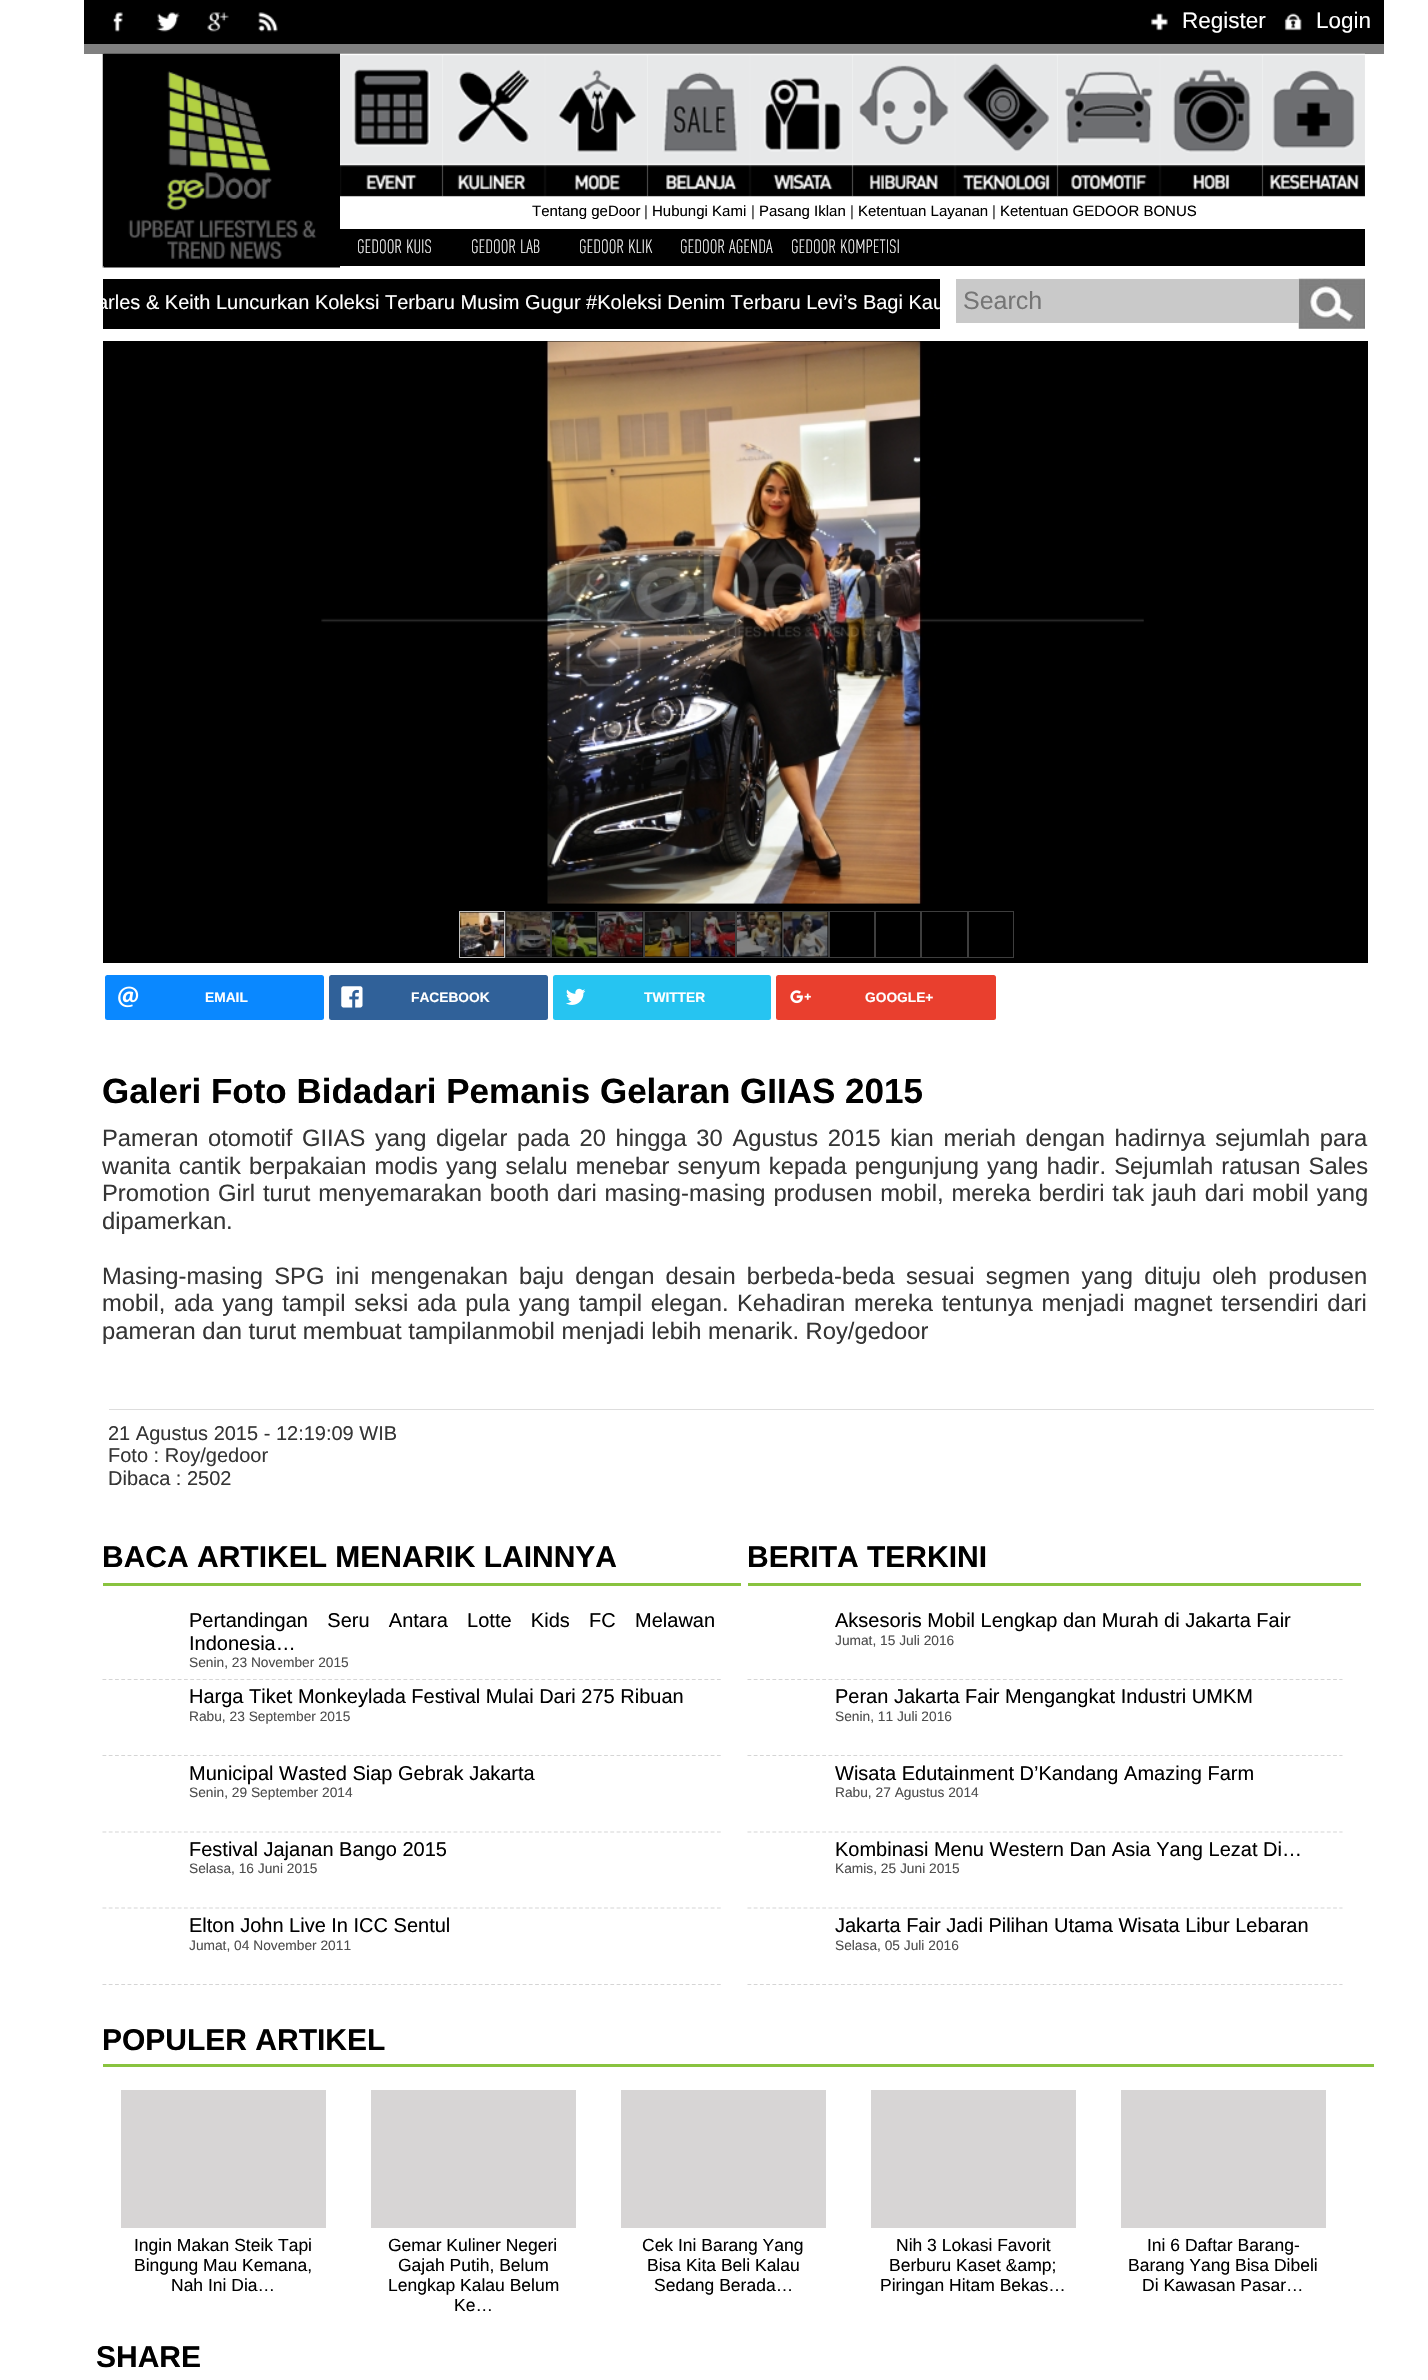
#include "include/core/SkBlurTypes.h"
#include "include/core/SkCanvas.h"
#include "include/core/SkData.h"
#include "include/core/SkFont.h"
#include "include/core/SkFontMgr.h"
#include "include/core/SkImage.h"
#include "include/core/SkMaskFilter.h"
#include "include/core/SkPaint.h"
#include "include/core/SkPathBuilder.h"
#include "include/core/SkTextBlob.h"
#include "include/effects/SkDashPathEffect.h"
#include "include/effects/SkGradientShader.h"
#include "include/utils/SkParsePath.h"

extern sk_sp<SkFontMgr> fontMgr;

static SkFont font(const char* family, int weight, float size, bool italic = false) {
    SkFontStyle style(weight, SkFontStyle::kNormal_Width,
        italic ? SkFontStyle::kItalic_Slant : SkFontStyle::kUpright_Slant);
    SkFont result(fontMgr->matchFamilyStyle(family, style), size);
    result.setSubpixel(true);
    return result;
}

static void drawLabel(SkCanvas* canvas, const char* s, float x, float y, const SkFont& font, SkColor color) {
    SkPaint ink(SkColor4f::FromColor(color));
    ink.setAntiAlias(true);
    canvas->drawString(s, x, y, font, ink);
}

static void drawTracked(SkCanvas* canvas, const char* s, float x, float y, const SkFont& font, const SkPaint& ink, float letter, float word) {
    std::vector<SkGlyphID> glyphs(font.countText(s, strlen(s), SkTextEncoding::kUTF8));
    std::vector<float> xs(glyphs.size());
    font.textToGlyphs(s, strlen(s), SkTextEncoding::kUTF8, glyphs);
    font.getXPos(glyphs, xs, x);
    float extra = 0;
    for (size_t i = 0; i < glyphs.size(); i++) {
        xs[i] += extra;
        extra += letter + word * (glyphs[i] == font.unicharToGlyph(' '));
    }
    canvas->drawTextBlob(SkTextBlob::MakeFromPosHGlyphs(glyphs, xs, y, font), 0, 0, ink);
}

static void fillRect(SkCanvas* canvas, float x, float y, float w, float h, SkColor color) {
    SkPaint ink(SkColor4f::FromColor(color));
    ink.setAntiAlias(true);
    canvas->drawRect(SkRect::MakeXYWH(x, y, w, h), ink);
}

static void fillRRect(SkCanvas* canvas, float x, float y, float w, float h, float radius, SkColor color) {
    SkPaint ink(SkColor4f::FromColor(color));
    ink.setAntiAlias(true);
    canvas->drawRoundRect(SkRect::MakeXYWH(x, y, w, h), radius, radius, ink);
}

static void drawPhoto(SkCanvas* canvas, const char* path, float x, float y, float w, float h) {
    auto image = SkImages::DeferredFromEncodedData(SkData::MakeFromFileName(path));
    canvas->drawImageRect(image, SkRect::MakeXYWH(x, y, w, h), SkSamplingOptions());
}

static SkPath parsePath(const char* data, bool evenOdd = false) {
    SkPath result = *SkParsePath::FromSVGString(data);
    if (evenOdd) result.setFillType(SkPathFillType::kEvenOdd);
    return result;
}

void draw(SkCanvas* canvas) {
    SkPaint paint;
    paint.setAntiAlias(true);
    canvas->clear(0xFFFFFFFF);
    fillRect(canvas, 84, 0, 1300, 44, 0xFF000000);
    drawPhoto(canvas, "assets/img1.png", 113, 12, 10, 20);
    drawPhoto(canvas, "assets/img2.png", 156, 12, 24, 20);
    drawPhoto(canvas, "assets/img3.png", 207, 12, 22, 20);
    drawPhoto(canvas, "assets/img4.png", 258, 12, 20, 20);
    drawPhoto(canvas, "assets/img5.png", 1151, 13, 17, 18);
    SkFont font1 = font("Liberation Sans", 400, 22.5f);
    drawLabel(canvas, "Register", 1182, 28, font1, 0xFFFFFFFF);
    drawPhoto(canvas, "assets/img6.png", 1284, 13, 18, 18);
    drawLabel(canvas, "Login", 1316, 28, font1, 0xFFFFFFFF);
    fillRect(canvas, 84, 44, 1300, 10, 0xFF808080);
    fillRect(canvas, 103, 54, 1, 212, 0xFF000000);
    drawPhoto(canvas, "assets/img7.png", 102, 53, 238, 215);
    drawPhoto(canvas, "assets/img9.png", 442, 53, 103, 144);
    drawPhoto(canvas, "assets/img8.png", 340, 53, 103, 144);
    drawPhoto(canvas, "assets/img11.png", 647, 53, 103, 144);
    drawPhoto(canvas, "assets/img10.png", 545, 53, 103, 144);
    drawPhoto(canvas, "assets/img13.png", 852, 53, 103, 144);
    drawPhoto(canvas, "assets/img12.png", 750, 53, 103, 144);
    drawPhoto(canvas, "assets/img15.png", 1057, 53, 103, 144);
    drawPhoto(canvas, "assets/img14.png", 955, 53, 103, 144);
    drawPhoto(canvas, "assets/img17.png", 1262, 53, 103, 144);
    drawPhoto(canvas, "assets/img16.png", 1160, 53, 103, 144);
    SkFont font2 = font("Liberation Sans", 400, 15);
    drawLabel(canvas, "Tentang geDoor", 532, 216, font2, 0xFF000000);
    drawLabel(canvas, "|", 644, 216, font2, 0xFF353535);
    drawLabel(canvas, "Hubungi Kami", 652, 216, font2, 0xFF000000);
    drawLabel(canvas, "|", 751, 216, font2, 0xFF353535);
    drawLabel(canvas, "Pasang Iklan", 759, 216, font2, 0xFF000000);
    drawLabel(canvas, "|", 850, 216, font2, 0xFF353535);
    drawLabel(canvas, "Ketentuan Layanan", 858, 216, font2, 0xFF000000);
    drawLabel(canvas, "|", 992, 216, font2, 0xFF353535);
    drawLabel(canvas, "Ketentuan GEDOOR BONUS", 1000, 216, font2, 0xFF000000);
    fillRect(canvas, 340, 229, 1025, 37, 0xFF000000);
    SkFont font3 = font("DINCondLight", 300, 19);
    drawLabel(canvas, "GEDOOR KUIS", 357, 253, font3, 0xFFFFFFFF);
    drawLabel(canvas, "GEDOOR LAB", 471, 253, font3, 0xFFFFFFFF);
    drawLabel(canvas, "GEDOOR KLIK", 579, 253, font3, 0xFFFFFFFF);
    drawLabel(canvas, "GEDOOR AGENDA", 680, 253, font3, 0xFFFFFFFF);
    drawLabel(canvas, "GEDOOR KOMPETISI", 791, 253, font3, 0xFFFFFFFF);
    fillRect(canvas, 103, 279, 837, 50, 0xFF000000);
    canvas->save();
    canvas->clipRect(SkRect::MakeXYWH(103, 279, 837, 50));
    SkFont font4 = font("Liberation Sans", 400, 20);
    drawLabel(canvas, "arles & Keith Luncurkan Koleksi Terbaru Musim Gugur #Koleksi Denim Terbaru Levi’s Bagi Kau", 97, 309, font4, 0xFFFFFFFF);
    canvas->restore();
    drawPhoto(canvas, "assets/img18.png", 1298, 278, 67, 51);
    fillRect(canvas, 956, 279, 343, 44, 0xFFC9C9C9);
    SkFont font5 = font("Liberation Sans", 400, 25);
    drawLabel(canvas, "Search", 963, 309, font5, 0xFF757575);
    fillRect(canvas, 103, 341, 1265, 622, 0xFF000000);
    drawPhoto(canvas, "assets/img19.png", 321, 341, 823, 563);
    paint.setStroke(true);
    paint.setStrokeWidth(1);
    paint.setColor(0xFFC3C3C3);
    canvas->drawRect(SkRect::MakeXYWH(459.5f, 911.5f, 45, 46), paint);
    drawPhoto(canvas, "assets/img20.png", 460, 912, 44, 45);
    paint.setColor(0xFF3E3E3E);
    canvas->drawRect(SkRect::MakeXYWH(505.5f, 911.5f, 45, 46), paint);
    drawPhoto(canvas, "assets/img21.png", 506, 912, 44, 45);
    canvas->drawRect(SkRect::MakeXYWH(551.5f, 911.5f, 46, 46), paint);
    drawPhoto(canvas, "assets/img22.png", 552, 912, 45, 45);
    canvas->drawRect(SkRect::MakeXYWH(598.5f, 911.5f, 45, 46), paint);
    drawPhoto(canvas, "assets/img23.png", 598, 912, 45, 45);
    canvas->drawRect(SkRect::MakeXYWH(644.5f, 911.5f, 45, 46), paint);
    drawPhoto(canvas, "assets/img24.png", 645, 912, 44, 45);
    canvas->drawRect(SkRect::MakeXYWH(690.5f, 911.5f, 45, 46), paint);
    drawPhoto(canvas, "assets/img25.png", 691, 912, 44, 45);
    canvas->drawRect(SkRect::MakeXYWH(736.5f, 911.5f, 46, 46), paint);
    drawPhoto(canvas, "assets/img26.png", 737, 912, 45, 45);
    canvas->drawRect(SkRect::MakeXYWH(783.5f, 911.5f, 45, 46), paint);
    drawPhoto(canvas, "assets/img27.png", 783, 912, 45, 45);
    canvas->drawRect(SkRect::MakeXYWH(829.5f, 911.5f, 45, 46), paint);
    canvas->drawRect(SkRect::MakeXYWH(875.5f, 911.5f, 45, 46), paint);
    canvas->drawRect(SkRect::MakeXYWH(921.5f, 911.5f, 46, 46), paint);
    canvas->drawRect(SkRect::MakeXYWH(968.5f, 911.5f, 45, 46), paint);
    fillRRect(canvas, 105, 975, 219, 45, 2.5f, 0xFF0A88FF);
    drawPhoto(canvas, "assets/img28.png", 118, 986, 21, 22);
    SkFont font6 = font("Liberation Sans", 700, 13.75f);
    drawLabel(canvas, "EMAIL", 205, 1002, font6, 0xFFFFFFFF);
    fillRRect(canvas, 329, 975, 219, 45, 2.5f, 0xFF306199);
    drawPhoto(canvas, "assets/img29.png", 341, 986, 22, 22);
    drawLabel(canvas, "FACEBOOK", 411, 1002, font6, 0xFFFFFFFF);
    fillRRect(canvas, 553, 975, 218, 45, 2.5f, 0xFF26C4F1);
    drawPhoto(canvas, "assets/img30.png", 566, 988, 20, 17);
    drawLabel(canvas, "TWITTER", 644, 1002, font6, 0xFFFFFFFF);
    fillRRect(canvas, 776, 975, 220, 45, 2.5f, 0xFFE93F2E);
    drawPhoto(canvas, "assets/img31.png", 790, 990, 21, 14);
    drawLabel(canvas, "GOOGLE+", 865, 1002, font6, 0xFFFFFFFF);
    SkFont font7 = font("Liberation Sans", 700, 35);
    drawLabel(canvas, "Galeri Foto Bidadari Pemanis Gelaran GIIAS 2015", 102, 1103, font7, 0xFF000000);
    SkFont font8 = font("Liberation Sans", 400, 23.75f);
    paint.setStroke(false);
    paint.setColor(0xFF353535);
    drawTracked(canvas, "Pameran otomotif GIIAS yang digelar pada 20 hingga 30 Agustus 2015 kian meriah dengan hadirnya sejumlah para", 102, 1146, font8, paint, 0, 3);
    drawTracked(canvas, "wanita cantik berpakaian modis yang selalu menebar senyum kepada pengunjung yang hadir. Sejumlah ratusan Sales", 102, 1174, font8, paint, 0, 1.5f);
    drawTracked(canvas, "Promotion Girl turut menyemarakan booth dari masing-masing produsen mobil, mereka berdiri tak jauh dari mobil yang", 102, 1201, font8, paint, 0, 1.25f);
    drawLabel(canvas, "dipamerkan.", 102, 1229, font8, 0xFF353535);
    drawTracked(canvas, "Masing-masing SPG ini mengenakan baju dengan desain berbeda-beda sesuai segmen yang dituju oleh produsen", 102, 1284, font8, paint, 0, 4.6f);
    drawTracked(canvas, "mobil, ada yang tampil seksi ada pula yang tampil elegan.", 102, 1311, font8, paint, 0, 2);
    drawTracked(canvas, "Kehadiran mereka tentunya menjadi magnet tersendiri dari", 737, 1311, font8, paint, 0, 2);
    drawLabel(canvas, "pameran dan turut membuat tampilanmobil menjadi lebih menarik. Roy/gedoor", 102, 1339, font8, 0xFF353535);
    fillRect(canvas, 109, 1409, 1265, 1, 0xFFDDDDDD);
    drawLabel(canvas, "21 Agustus 2015 - 12:19:09 WIB", 108, 1440, font4, 0xFF353535);
    drawLabel(canvas, "Foto : Roy/gedoor", 108, 1462, font4, 0xFF353535);
    drawLabel(canvas, "Dibaca : 2502", 108, 1485, font4, 0xFF353535);
    fillRect(canvas, 103, 1583, 638, 3, 0xFF89C33F);
    SkFont font9 = font("Liberation Sans", 700, 30);
    drawLabel(canvas, "BACA ARTIKEL MENARIK LAINNYA", 102, 1567, font9, 0xFF000000);
    paint.setStroke(true);
    paint.setStrokeWidth(1.2f);
    paint.setColor(0xFFD5D5D5);
    paint.setPathEffect(SkDashPathEffect::Make({{3.75f, 2.52f}}, 0));
    canvas->drawPath(parsePath("M102.5 1679.5H721"), paint);
    paint.setPathEffect(nullptr);
    paint.setStroke(false);
    paint.setColor(0xFF000000);
    drawTracked(canvas, "Pertandingan Seru Antara Lotte Kids FC Melawan", 189, 1627, font4, paint, 0, 13.75f);
    drawLabel(canvas, "Indonesia…", 189, 1650, font4, 0xFF000000);
    SkFont font10 = font("Liberation Sans", 400, 13.75f);
    drawLabel(canvas, "Senin, 23 November 2015", 189, 1667, font10, 0xFF4D4D4D);
    paint.setStroke(true);
    paint.setColor(0xFFD5D5D5);
    paint.setPathEffect(SkDashPathEffect::Make({{3.75f, 2.52f}}, 0));
    canvas->drawPath(parsePath("M102.5 1755.5H721"), paint);
    paint.setPathEffect(nullptr);
    drawLabel(canvas, "Harga Tiket Monkeylada Festival Mulai Dari 275 Ribuan", 189, 1703, font4, 0xFF000000);
    drawLabel(canvas, "Rabu, 23 September 2015", 189, 1721, font10, 0xFF4D4D4D);
    paint.setPathEffect(SkDashPathEffect::Make({{3.75f, 2.52f}}, 0));
    canvas->drawPath(parsePath("M102.5 1832H721"), paint);
    paint.setPathEffect(nullptr);
    drawLabel(canvas, "Municipal Wasted Siap Gebrak Jakarta", 189, 1780, font4, 0xFF000000);
    drawLabel(canvas, "Senin, 29 September 2014", 189, 1797, font10, 0xFF4D4D4D);
    paint.setPathEffect(SkDashPathEffect::Make({{3.75f, 2.52f}}, 0));
    canvas->drawPath(parsePath("M102.5 1908H721"), paint);
    paint.setPathEffect(nullptr);
    drawLabel(canvas, "Festival Jajanan Bango 2015", 189, 1856, font4, 0xFF000000);
    drawLabel(canvas, "Selasa, 16 Juni 2015", 189, 1873, font10, 0xFF4D4D4D);
    paint.setPathEffect(SkDashPathEffect::Make({{3.75f, 2.52f}}, 0));
    canvas->drawPath(parsePath("M102.5 1984.5H721"), paint);
    paint.setPathEffect(nullptr);
    drawLabel(canvas, "Elton John Live In ICC Sentul", 189, 1932, font4, 0xFF000000);
    drawLabel(canvas, "Jumat, 04 November 2011", 189, 1950, font10, 0xFF4D4D4D);
    fillRect(canvas, 748, 1583, 613, 3, 0xFF89C33F);
    drawLabel(canvas, "BERITA TERKINI", 747, 1567, font9, 0xFF000000);
    paint.setPathEffect(SkDashPathEffect::Make({{3.75f, 2.48f}}, 0));
    canvas->drawPath(parsePath("M747.5 1679.5H1342.5"), paint);
    paint.setPathEffect(nullptr);
    drawLabel(canvas, "Aksesoris Mobil Lengkap dan Murah di Jakarta Fair", 835, 1627, font4, 0xFF000000);
    drawLabel(canvas, "Jumat, 15 Juli 2016", 835, 1645, font10, 0xFF4D4D4D);
    paint.setPathEffect(SkDashPathEffect::Make({{3.75f, 2.48f}}, 0));
    canvas->drawPath(parsePath("M747.5 1755.5H1342.5"), paint);
    paint.setPathEffect(nullptr);
    drawLabel(canvas, "Peran Jakarta Fair Mengangkat Industri UMKM", 835, 1703, font4, 0xFF000000);
    drawLabel(canvas, "Senin, 11 Juli 2016", 835, 1721, font10, 0xFF4D4D4D);
    paint.setPathEffect(SkDashPathEffect::Make({{3.75f, 2.48f}}, 0));
    canvas->drawPath(parsePath("M747.5 1832H1342.5"), paint);
    paint.setPathEffect(nullptr);
    drawLabel(canvas, "Wisata Edutainment D’Kandang Amazing Farm", 835, 1780, font4, 0xFF000000);
    drawLabel(canvas, "Rabu, 27 Agustus 2014", 835, 1797, font10, 0xFF4D4D4D);
    paint.setPathEffect(SkDashPathEffect::Make({{3.75f, 2.48f}}, 0));
    canvas->drawPath(parsePath("M747.5 1908H1342.5"), paint);
    paint.setPathEffect(nullptr);
    drawLabel(canvas, "Kombinasi Menu Western Dan Asia Yang Lezat Di…", 835, 1856, font4, 0xFF000000);
    drawLabel(canvas, "Kamis, 25 Juni 2015", 835, 1873, font10, 0xFF4D4D4D);
    paint.setPathEffect(SkDashPathEffect::Make({{3.75f, 2.48f}}, 0));
    canvas->drawPath(parsePath("M747.5 1984.5H1342.5"), paint);
    paint.setPathEffect(nullptr);
    drawLabel(canvas, "Jakarta Fair Jadi Pilihan Utama Wisata Libur Lebaran", 835, 1932, font4, 0xFF000000);
    drawLabel(canvas, "Selasa, 05 Juli 2016", 835, 1950, font10, 0xFF4D4D4D);
    fillRect(canvas, 103, 2064, 1271, 3, 0xFF89C33F);
    drawLabel(canvas, "POPULER ARTIKEL", 102, 2050, font9, 0xFF000000);
    fillRect(canvas, 121, 2090, 205, 138, 0xFFD7D5D5);
    SkFont font11 = font("Liberation Sans", 400, 17.5f);
    drawLabel(canvas, "Ingin Makan Steik Tapi", 134, 2251, font11, 0xFF000000);
    drawLabel(canvas, "Bingung Mau Kemana,", 134, 2271, font11, 0xFF000000);
    drawLabel(canvas, "Nah Ini Dia…", 171, 2291, font11, 0xFF000000);
    fillRect(canvas, 371, 2090, 205, 138, 0xFFD7D5D5);
    drawLabel(canvas, "Gemar Kuliner Negeri", 388, 2251, font11, 0xFF000000);
    drawLabel(canvas, "Gajah Putih, Belum", 398, 2271, font11, 0xFF000000);
    drawLabel(canvas, "Lengkap Kalau Belum", 388, 2291, font11, 0xFF000000);
    drawLabel(canvas, "Ke…", 454, 2311, font11, 0xFF000000);
    fillRect(canvas, 621, 2090, 205, 138, 0xFFD7D5D5);
    drawLabel(canvas, "Cek Ini Barang Yang", 642, 2251, font11, 0xFF000000);
    drawLabel(canvas, "Bisa Kita Beli Kalau", 647, 2271, font11, 0xFF000000);
    drawLabel(canvas, "Sedang Berada…", 654, 2291, font11, 0xFF000000);
    fillRect(canvas, 871, 2090, 205, 138, 0xFFD7D5D5);
    drawLabel(canvas, "Nih 3 Lokasi Favorit", 896, 2251, font11, 0xFF000000);
    drawLabel(canvas, "Berburu Kaset &amp;", 889, 2271, font11, 0xFF000000);
    drawLabel(canvas, "Piringan Hitam Bekas…", 880, 2291, font11, 0xFF000000);
    fillRect(canvas, 1121, 2090, 205, 138, 0xFFD7D5D5);
    drawLabel(canvas, "Ini 6 Daftar Barang-", 1147, 2251, font11, 0xFF000000);
    drawLabel(canvas, "Barang Yang Bisa Dibeli", 1128, 2271, font11, 0xFF000000);
    drawLabel(canvas, "Di Kawasan Pasar…", 1142, 2291, font11, 0xFF000000);
    drawLabel(canvas, "SHARE", 96, 2367, font9, 0xFF000000);
}
